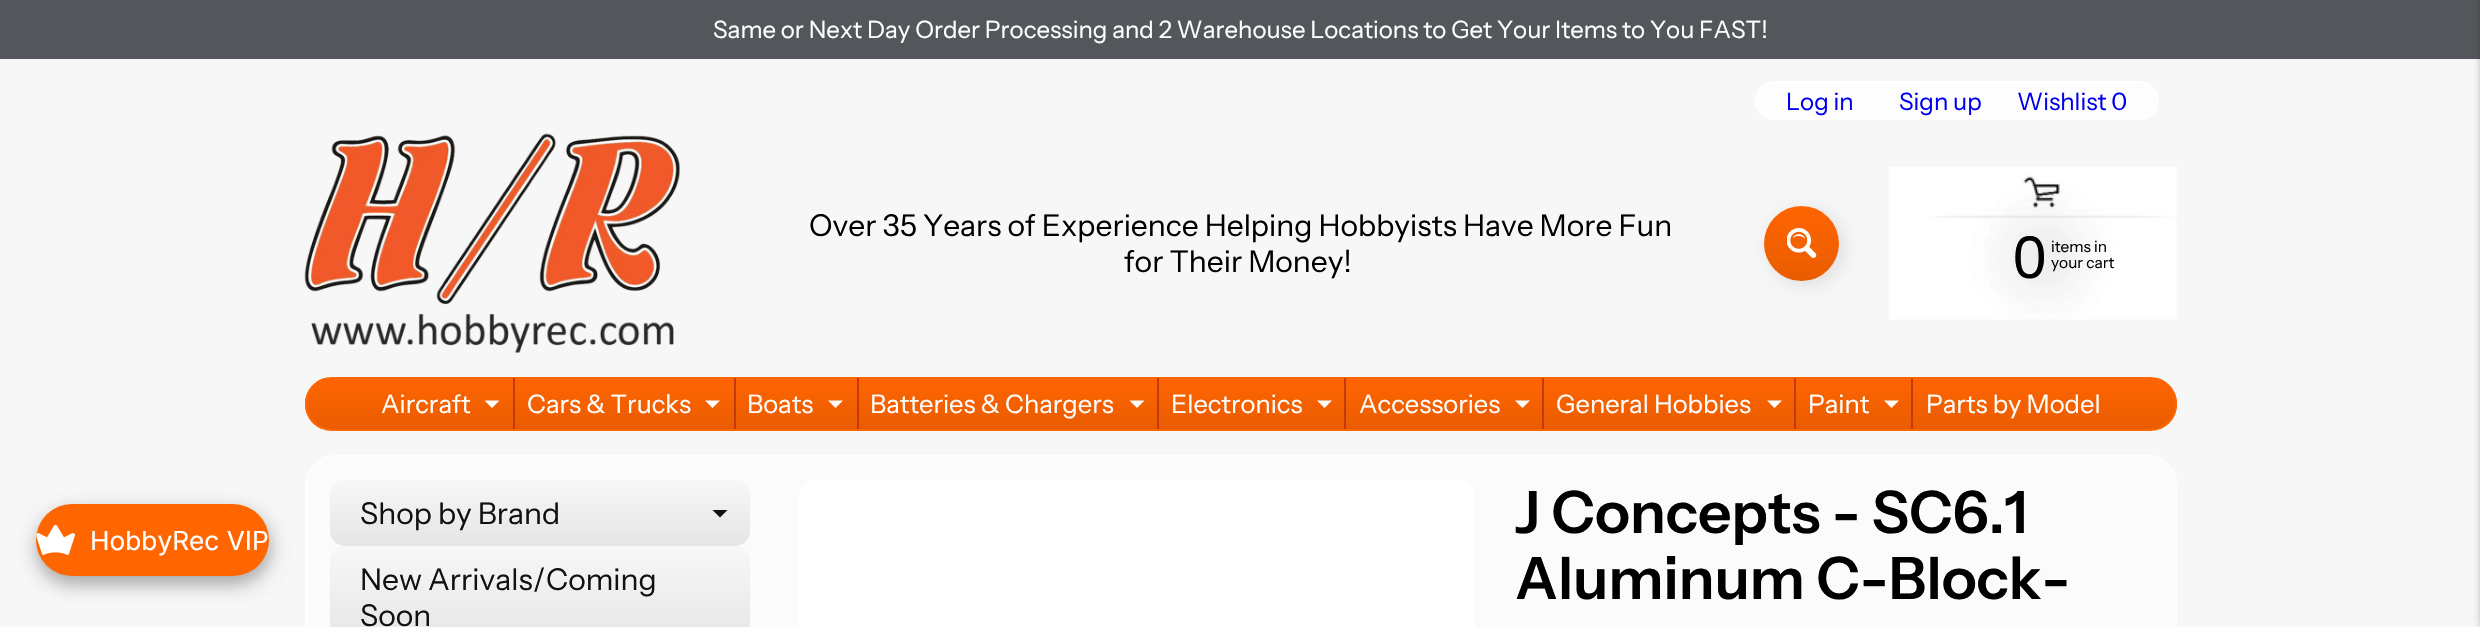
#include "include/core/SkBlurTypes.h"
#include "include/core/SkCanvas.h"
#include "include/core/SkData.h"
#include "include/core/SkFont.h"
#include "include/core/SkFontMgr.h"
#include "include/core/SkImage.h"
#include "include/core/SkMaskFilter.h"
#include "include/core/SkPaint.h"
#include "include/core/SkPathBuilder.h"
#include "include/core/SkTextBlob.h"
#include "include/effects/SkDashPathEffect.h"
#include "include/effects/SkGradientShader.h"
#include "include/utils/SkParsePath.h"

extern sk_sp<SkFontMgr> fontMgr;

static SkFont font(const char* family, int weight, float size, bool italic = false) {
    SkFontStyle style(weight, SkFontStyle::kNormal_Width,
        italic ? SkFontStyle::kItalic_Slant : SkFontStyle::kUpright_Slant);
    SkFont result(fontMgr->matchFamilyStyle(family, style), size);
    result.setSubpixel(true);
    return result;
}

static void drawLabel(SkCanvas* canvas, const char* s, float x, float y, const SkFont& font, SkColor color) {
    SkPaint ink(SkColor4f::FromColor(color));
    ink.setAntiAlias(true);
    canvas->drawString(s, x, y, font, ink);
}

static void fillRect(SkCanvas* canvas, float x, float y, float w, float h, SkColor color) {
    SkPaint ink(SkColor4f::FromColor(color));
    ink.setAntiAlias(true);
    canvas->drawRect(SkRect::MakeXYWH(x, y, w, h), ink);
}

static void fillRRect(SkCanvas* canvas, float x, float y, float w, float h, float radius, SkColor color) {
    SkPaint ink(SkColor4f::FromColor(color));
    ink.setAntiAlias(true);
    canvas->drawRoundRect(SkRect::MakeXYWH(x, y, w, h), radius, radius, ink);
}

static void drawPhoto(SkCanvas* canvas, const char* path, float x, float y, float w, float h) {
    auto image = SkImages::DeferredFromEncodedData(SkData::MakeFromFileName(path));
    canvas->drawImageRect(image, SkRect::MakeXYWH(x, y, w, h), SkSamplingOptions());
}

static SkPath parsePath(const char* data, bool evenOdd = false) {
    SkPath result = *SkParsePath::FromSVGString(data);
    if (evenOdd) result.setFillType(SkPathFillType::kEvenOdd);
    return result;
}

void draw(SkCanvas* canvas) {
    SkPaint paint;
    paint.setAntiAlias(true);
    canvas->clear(0xFFF7F7F7);
    paint.setColor(0x1A000000);
    paint.setMaskFilter(SkMaskFilter::MakeBlur(kNormal_SkBlurStyle, 9));
    canvas->drawRoundRect(SkRect::MakeXYWH(41, 509, 232, 72), 36, 36, paint);
    paint.setMaskFilter(nullptr);
    paint.setColor(0x40000000);
    paint.setMaskFilter(SkMaskFilter::MakeBlur(kNormal_SkBlurStyle, 9));
    canvas->drawRoundRect(SkRect::MakeXYWH(36, 513, 233, 72), 36, 36, paint);
    paint.setMaskFilter(nullptr);
    fillRRect(canvas, 36, 504, 233, 72, 36, 0xFFFF6600);
    drawPhoto(canvas, "assets/img1.png", 36, 525, 39, 30);
    SkFont font1 = font("Inter", 400, 26.25f);
    drawLabel(canvas, "HobbyRec VIP", 90, 550, font1, 0xFFFFFFFF);
    fillRect(canvas, 0, 0, 2480, 59, 0xFF53565A);
    SkFont font2 = font("Instrument Sans", 400, 24);
    drawLabel(canvas, "Same or Next Day Order Processing and 2 Warehouse Locations to Get Your Items to You FAST!", 713, 38, font2, 0xFFFFFFFF);
    drawPhoto(canvas, "assets/img2.png", 304, 133, 376, 220);
    SkFont font3 = font("Instrument Sans", 400, 30);
    drawLabel(canvas, "Over 35 Years of Experience Helping Hobbyists Have More Fun", 809, 236, font3, 0xFF000000);
    drawLabel(canvas, "for Their Money!", 1124, 272, font3, 0xFF000000);
    paint.setColor(0xFFFDFDFD);
    canvas->drawRoundRect(SkRect::MakeXYWH(1756, 82, 402, 37), 18.5f, 18.5f, paint);
    paint.setStroke(true);
    paint.setStrokeWidth(2);
    paint.setColor(0xFFFFFFFF);
    canvas->drawRoundRect(SkRect::MakeXYWH(1756, 82, 402, 37), 18.5f, 18.5f, paint);
    drawLabel(canvas, "Log in", 1786, 110, font2, 0xFF0000EE);
    drawLabel(canvas, "Sign up", 1899, 110, font2, 0xFF0000EE);
    drawLabel(canvas, "Wishlist 0", 2017, 110, font2, 0xFF0000EE);
    paint.setStroke(false);
    paint.setColor(0x1A000000);
    paint.setMaskFilter(SkMaskFilter::MakeBlur(kNormal_SkBlurStyle, 9));
    canvas->drawRoundRect(SkRect::MakeXYWH(1769, 210, 75, 75), 37.5f, 37.5f, paint);
    paint.setMaskFilter(nullptr);
    {
        const SkColor colors[] = {0xFFFF6501, 0xFFE95C00};
        const float stops[] = {0, 1};
        const SkPoint ends[] = {{1802, 206}, {1802, 281}};
        paint.setShader(SkGradientShader::MakeLinear(ends, colors, stops, 2, SkTileMode::kClamp));
        paint.setAlpha(255);
    }
    canvas->drawCircle(1801.5f, 243.5f, 37.5f, paint);
    drawPhoto(canvas, "assets/img3.png", 1787, 228, 30, 30);
    drawPhoto(canvas, "assets/img4.png", 1888, 166, 289, 154);
    SkFont font4 = font("Liberation Sans", 400, 60);
    drawLabel(canvas, "0", 2013, 278, font4, 0xFF000000);
    SkFont font5 = font("Instrument Sans", 400, 15.5f);
    drawLabel(canvas, "items in", 2051, 252, font5, 0xFF000000);
    drawLabel(canvas, "your cart", 2051, 268, font5, 0xFF000000);
    canvas->save();
    canvas->clipPath(parsePath("M332 377H2150C2165 377 2177 389 2177 404C2177 419 2165 431 2150 431H332C317 431 305 419 305 404C305 389 317 377 332 377Z"), true);
    {
        const SkColor colors[] = {0xFFFF6501, 0xFFE95C00};
        const float stops[] = {0, 1};
        const SkPoint ends[] = {{1241, 378}, {1241, 429}};
        paint.setShader(SkGradientShader::MakeLinear(ends, colors, stops, 2, SkTileMode::kClamp));
        paint.setAlpha(255);
    }
    canvas->drawRect(SkRect::MakeXYWH(305, 378, 1872, 51), paint);
    canvas->restore();
    paint.setStroke(true);
    paint.setShader(nullptr);
    paint.setColor(0xFFFF6501);
    canvas->drawRoundRect(SkRect::MakeXYWH(306, 378, 1870, 52), 26, 26, paint);
    SkFont font6 = font("Instrument Sans", 400, 25.5f);
    drawLabel(canvas, "Aircraft", 381, 413, font6, 0xFFFFFFFF);
    paint.setStroke(false);
    paint.setColor(0xFFFFFFFF);
    canvas->drawPath(parsePath("M484.5 400.5H499.5L492 408Z"), paint);
    fillRect(canvas, 513, 378, 2, 51, 0xFFC33A0E);
    drawLabel(canvas, "Cars & Trucks", 527, 413, font6, 0xFFFFFFFF);
    canvas->drawPath(parsePath("M705 400.5H720L712.5 408Z"), paint);
    fillRect(canvas, 734, 378, 2, 51, 0xFFC33A0E);
    drawLabel(canvas, "Boats", 747, 413, font6, 0xFFFFFFFF);
    canvas->drawPath(parsePath("M828 400.5H843L835.5 408Z"), paint);
    fillRect(canvas, 857, 378, 2, 51, 0xFFC33A0E);
    drawLabel(canvas, "Batteries & Chargers", 870, 413, font6, 0xFFFFFFFF);
    canvas->drawPath(parsePath("M1129.5 400.5H1144.5L1137 408Z"), paint);
    fillRect(canvas, 1157, 378, 2, 51, 0xFFC33A0E);
    drawLabel(canvas, "Electronics", 1171, 413, font6, 0xFFFFFFFF);
    canvas->drawPath(parsePath("M1317 400.5H1332L1324.5 408Z"), paint);
    fillRect(canvas, 1344, 378, 2, 51, 0xFFC33A0E);
    drawLabel(canvas, "Accessories", 1359, 413, font6, 0xFFFFFFFF);
    canvas->drawPath(parsePath("M1515 400.5H1530L1522.5 408Z"), paint);
    fillRect(canvas, 1542, 378, 2, 51, 0xFFC33A0E);
    drawLabel(canvas, "General Hobbies", 1556, 413, font6, 0xFFFFFFFF);
    canvas->drawPath(parsePath("M1767 400.5H1782L1774.5 408Z"), paint);
    fillRect(canvas, 1794, 378, 2, 51, 0xFFC33A0E);
    drawLabel(canvas, "Paint", 1808, 413, font6, 0xFFFFFFFF);
    canvas->drawPath(parsePath("M1884 400.5H1899L1891.5 408Z"), paint);
    fillRect(canvas, 1911, 378, 2, 51, 0xFFC33A0E);
    drawLabel(canvas, "Parts by Model", 1926, 413, font6, 0xFFFFFFFF);
    paint.setColor(0xFFFBFBFB);
    canvas->drawRoundRect(SkRect::MakeXYWH(306, 456, 1870, 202), 29, 29, paint);
    paint.setStroke(true);
    paint.setColor(0xFFFEFEFE);
    canvas->drawRoundRect(SkRect::MakeXYWH(306, 456, 1870, 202), 29, 29, paint);
    paint.setStroke(false);
    {
        const SkColor colors[] = {0xFFF7F7F7, 0xFFE5E5E5};
        const float stops[] = {0, 1};
        const SkPoint ends[] = {{540, 480}, {540, 546}};
        paint.setShader(SkGradientShader::MakeLinear(ends, colors, stops, 2, SkTileMode::kClamp));
        paint.setAlpha(255);
    }
    canvas->drawRoundRect(SkRect::MakeXYWH(330, 480, 420, 66), 15, 15, paint);
    drawLabel(canvas, "Shop by Brand", 360, 524, font3, 0xFF111111);
    paint.setShader(nullptr);
    paint.setColor(0xFF111111);
    canvas->drawPath(parsePath("M712.5 510H727.5L720 517.5Z"), paint);
    {
        const SkColor colors[] = {0xFFF7F7F7, 0xFFE5E5E5};
        const float stops[] = {0, 1};
        const SkPoint ends[] = {{540, 546}, {540, 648}};
        paint.setShader(SkGradientShader::MakeLinear(ends, colors, stops, 2, SkTileMode::kClamp));
        paint.setAlpha(255);
    }
    canvas->drawRoundRect(SkRect::MakeXYWH(330, 546, 420, 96), 15, 15, paint);
    drawLabel(canvas, "New Arrivals/Coming", 360, 590, font3, 0xFF111111);
    drawLabel(canvas, "Soon", 360, 626, font3, 0xFF111111);
    fillRRect(canvas, 798, 480, 677, 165, 18, 0xFFFFFFFF);
    SkFont font7 = font("Instrument Sans", 600, 58.5f);
    drawLabel(canvas, "J Concepts - SC6.1", 1515, 533, font7, 0xFF000000);
    drawLabel(canvas, "Aluminum C-Block-", 1515, 599, font7, 0xFF000000);
    paint.setShader(nullptr);
    paint.setColor(0x80000000);
    paint.setMaskFilter(SkMaskFilter::MakeBlur(kNormal_SkBlurStyle, 5));
    canvas->drawRect(SkRect::MakeXYWH(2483, 0, 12, 627), paint);
    paint.setMaskFilter(nullptr);
}
